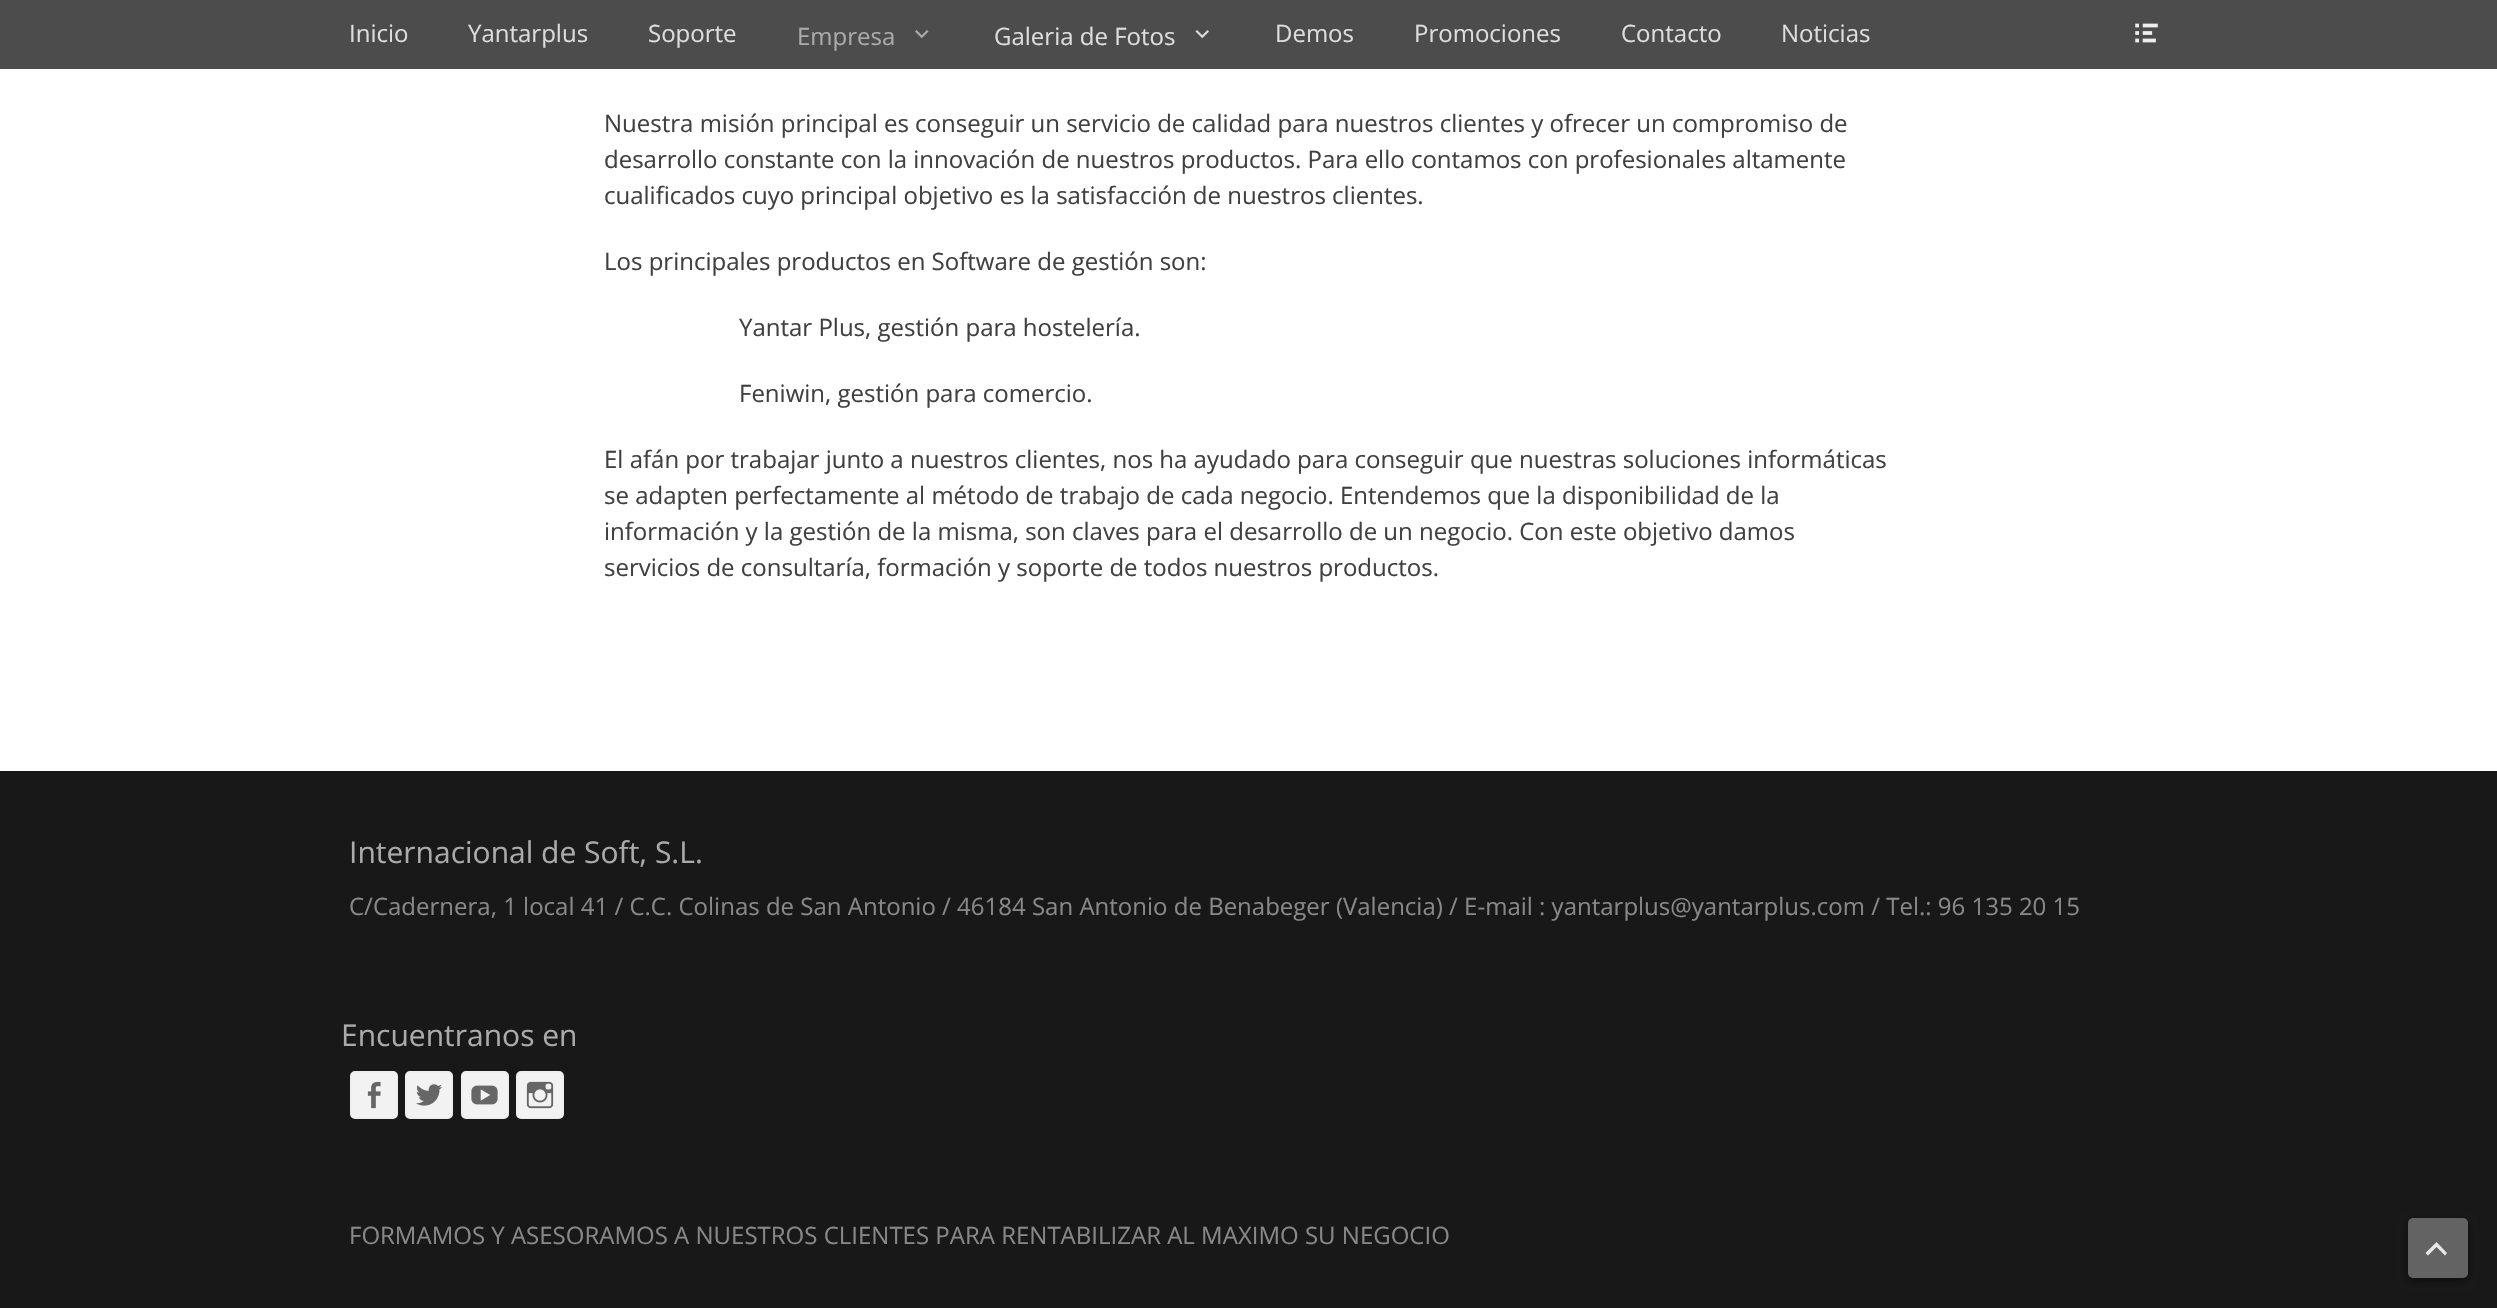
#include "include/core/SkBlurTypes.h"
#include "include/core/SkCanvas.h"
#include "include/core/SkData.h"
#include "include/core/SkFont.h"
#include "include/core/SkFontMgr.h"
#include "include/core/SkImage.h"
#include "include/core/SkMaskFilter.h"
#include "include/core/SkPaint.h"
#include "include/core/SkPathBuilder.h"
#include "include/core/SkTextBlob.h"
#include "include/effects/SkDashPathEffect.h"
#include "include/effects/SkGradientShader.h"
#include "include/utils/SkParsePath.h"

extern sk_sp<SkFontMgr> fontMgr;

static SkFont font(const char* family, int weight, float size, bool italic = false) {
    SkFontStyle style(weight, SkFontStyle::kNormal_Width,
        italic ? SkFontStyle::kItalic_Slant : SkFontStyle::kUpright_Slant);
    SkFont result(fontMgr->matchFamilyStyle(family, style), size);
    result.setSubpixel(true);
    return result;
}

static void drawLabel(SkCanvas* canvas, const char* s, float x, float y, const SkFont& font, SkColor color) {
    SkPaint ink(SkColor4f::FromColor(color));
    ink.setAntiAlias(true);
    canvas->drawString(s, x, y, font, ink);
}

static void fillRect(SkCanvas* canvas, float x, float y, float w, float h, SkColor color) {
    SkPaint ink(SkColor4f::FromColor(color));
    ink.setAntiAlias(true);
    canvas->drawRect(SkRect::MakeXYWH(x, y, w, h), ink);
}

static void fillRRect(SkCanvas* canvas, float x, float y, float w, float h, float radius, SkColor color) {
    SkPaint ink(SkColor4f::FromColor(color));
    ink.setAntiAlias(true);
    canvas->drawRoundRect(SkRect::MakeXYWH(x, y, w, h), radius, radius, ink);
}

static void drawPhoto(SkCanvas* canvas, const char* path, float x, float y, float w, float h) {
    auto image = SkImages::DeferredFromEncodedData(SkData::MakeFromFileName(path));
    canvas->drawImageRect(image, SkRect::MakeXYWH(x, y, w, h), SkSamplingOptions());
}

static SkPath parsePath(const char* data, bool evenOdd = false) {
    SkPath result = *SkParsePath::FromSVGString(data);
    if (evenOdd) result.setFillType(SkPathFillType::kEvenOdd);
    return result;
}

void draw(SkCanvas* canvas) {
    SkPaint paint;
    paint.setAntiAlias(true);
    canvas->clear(0xFFFFFFFF);
    fillRect(canvas, 0, 0, 2497, 69, 0xB3000000);
    SkFont font1 = font("Open Sans", 400, 24);
    drawLabel(canvas, "Inicio", 349, 42, font1, 0xFFDDDDDD);
    drawLabel(canvas, "Yantarplus", 468, 42, font1, 0xFFDDDDDD);
    drawLabel(canvas, "Soporte", 648, 42, font1, 0xFFDDDDDD);
    drawLabel(canvas, "Empresa", 797, 45, font1, 0xFFAAAAAA);
    drawPhoto(canvas, "assets/img1.png", 915, 30, 14, 9);
    drawLabel(canvas, "Galeria de Fotos", 994, 45, font1, 0xFFDDDDDD);
    drawPhoto(canvas, "assets/img2.png", 1195, 30, 14, 9);
    drawLabel(canvas, "Demos", 1275, 42, font1, 0xFFDDDDDD);
    drawLabel(canvas, "Promociones", 1414, 42, font1, 0xFFDDDDDD);
    drawLabel(canvas, "Contacto", 1621, 42, font1, 0xFFDDDDDD);
    drawLabel(canvas, "Noticias", 1781, 42, font1, 0xFFDDDDDD);
    drawPhoto(canvas, "assets/img3.png", 2135, 23, 23, 20);
    drawLabel(canvas, "Nuestra misión principal es conseguir un servicio de calidad para nuestros clientes y ofrecer un compromiso de", 604, 132, font1, 0xFF404040);
    drawLabel(canvas, "desarrollo constante con la innovación de nuestros productos. Para ello contamos con profesionales altamente", 604, 168, font1, 0xFF404040);
    drawLabel(canvas, "cualificados cuyo principal objetivo es la satisfacción de nuestros clientes.", 604, 204, font1, 0xFF404040);
    drawLabel(canvas, "Los principales productos en Software de gestión son:", 604, 270, font1, 0xFF404040);
    drawLabel(canvas, "Yantar Plus, gestión para hostelería.", 739, 336, font1, 0xFF404040);
    drawLabel(canvas, "Feniwin, gestión para comercio.", 739, 402, font1, 0xFF404040);
    drawLabel(canvas, "El afán por trabajar junto a nuestros clientes, nos ha ayudado para conseguir que nuestras soluciones informáticas", 604, 468, font1, 0xFF404040);
    drawLabel(canvas, "se adapten perfectamente al método de trabajo de cada negocio. Entendemos que la disponibilidad de la", 604, 504, font1, 0xFF404040);
    drawLabel(canvas, "información y la gestión de la misma, son claves para el desarrollo de un negocio. Con este objetivo damos", 604, 540, font1, 0xFF404040);
    drawLabel(canvas, "servicios de consultaría, formación y soporte de todos nuestros productos.", 604, 576, font1, 0xFF404040);
    fillRect(canvas, 0, 771, 2497, 537, 0xFF181818);
    SkFont font2 = font("Open Sans", 400, 30);
    drawLabel(canvas, "Internacional de Soft, S.L.", 349, 863, font2, 0xFFAAAAAA);
    drawLabel(canvas, "C/Cadernera, 1 local 41 / C.C. Colinas de San Antonio / 46184 San Antonio de Benabeger (Valencia) / E-mail : yantarplus@yantarplus.com / Tel.: 96 135 20 15", 349, 915, font1, 0xFF888888);
    drawLabel(canvas, "Encuentranos en", 341, 1046, font2, 0xFFAAAAAA);
    paint.setColor(0xFFF2F2F2);
    canvas->drawRoundRect(SkRect::MakeXYWH(351, 1072, 46, 46), 4, 4, paint);
    paint.setStroke(true);
    paint.setStrokeWidth(2);
    paint.setColor(0xFFEEEEEE);
    canvas->drawRoundRect(SkRect::MakeXYWH(351, 1072, 46, 46), 4, 4, paint);
    drawPhoto(canvas, "assets/img4.png", 367, 1081, 14, 28);
    paint.setStroke(false);
    paint.setColor(0xFFF2F2F2);
    canvas->drawRoundRect(SkRect::MakeXYWH(406, 1072, 46, 46), 4, 4, paint);
    paint.setStroke(true);
    paint.setColor(0xFFEEEEEE);
    canvas->drawRoundRect(SkRect::MakeXYWH(406, 1072, 46, 46), 4, 4, paint);
    drawPhoto(canvas, "assets/img5.png", 416, 1084, 26, 22);
    paint.setStroke(false);
    paint.setColor(0xFFF2F2F2);
    canvas->drawRoundRect(SkRect::MakeXYWH(462, 1072, 46, 46), 4, 4, paint);
    paint.setStroke(true);
    paint.setColor(0xFFEEEEEE);
    canvas->drawRoundRect(SkRect::MakeXYWH(462, 1072, 46, 46), 4, 4, paint);
    drawPhoto(canvas, "assets/img6.png", 471, 1085, 27, 20);
    paint.setStroke(false);
    paint.setColor(0xFFF2F2F2);
    canvas->drawRoundRect(SkRect::MakeXYWH(517, 1072, 46, 46), 4, 4, paint);
    paint.setStroke(true);
    paint.setColor(0xFFEEEEEE);
    canvas->drawRoundRect(SkRect::MakeXYWH(517, 1072, 46, 46), 4, 4, paint);
    drawPhoto(canvas, "assets/img7.png", 526, 1081, 28, 28);
    drawLabel(canvas, "FORMAMOS Y ASESORAMOS A NUESTROS CLIENTES PARA RENTABILIZAR AL MAXIMO SU NEGOCIO", 349, 1244, font1, 0xFF888888);
    paint.setStroke(false);
    paint.setColor(0x80010101);
    paint.setMaskFilter(SkMaskFilter::MakeBlur(kNormal_SkBlurStyle, 4.5f));
    canvas->drawRoundRect(SkRect::MakeXYWH(2408, 1221, 60, 60), 5, 5, paint);
    paint.setMaskFilter(nullptr);
    fillRRect(canvas, 2408, 1218, 60, 60, 5, 0xFF636363);
    paint.setColor(0xFFE7E7E7);
    canvas->drawPath(parsePath("M2445 1255.5L2436.5 1247L2428 1255.5L2425.5 1253L2436.5 1242L2447 1253Z"), paint);
}
